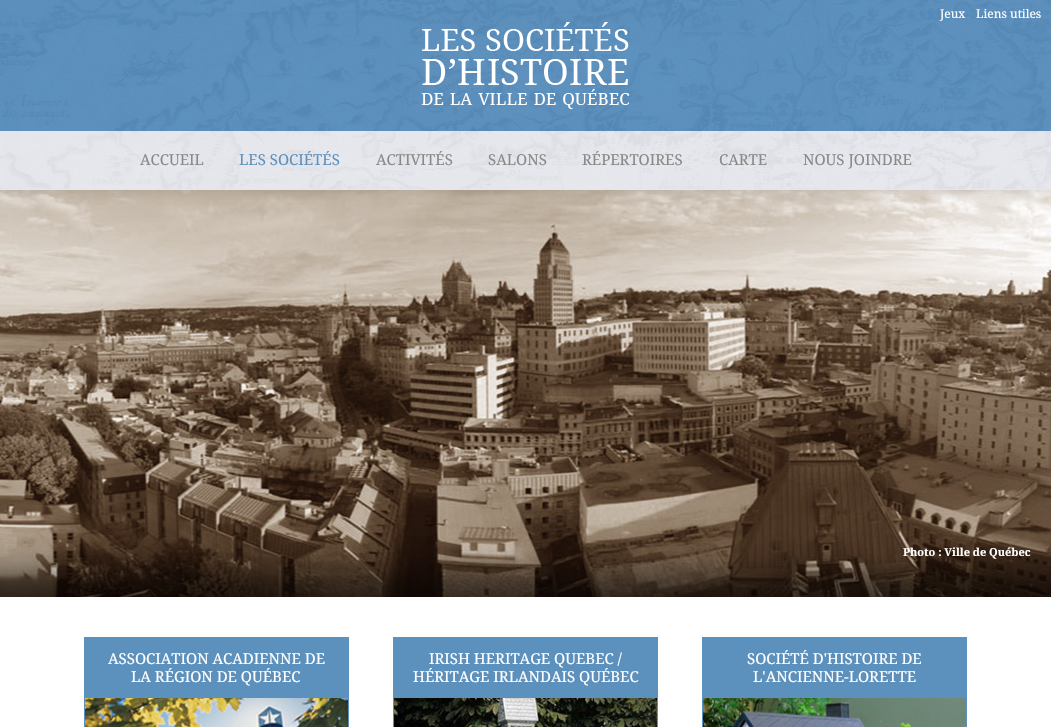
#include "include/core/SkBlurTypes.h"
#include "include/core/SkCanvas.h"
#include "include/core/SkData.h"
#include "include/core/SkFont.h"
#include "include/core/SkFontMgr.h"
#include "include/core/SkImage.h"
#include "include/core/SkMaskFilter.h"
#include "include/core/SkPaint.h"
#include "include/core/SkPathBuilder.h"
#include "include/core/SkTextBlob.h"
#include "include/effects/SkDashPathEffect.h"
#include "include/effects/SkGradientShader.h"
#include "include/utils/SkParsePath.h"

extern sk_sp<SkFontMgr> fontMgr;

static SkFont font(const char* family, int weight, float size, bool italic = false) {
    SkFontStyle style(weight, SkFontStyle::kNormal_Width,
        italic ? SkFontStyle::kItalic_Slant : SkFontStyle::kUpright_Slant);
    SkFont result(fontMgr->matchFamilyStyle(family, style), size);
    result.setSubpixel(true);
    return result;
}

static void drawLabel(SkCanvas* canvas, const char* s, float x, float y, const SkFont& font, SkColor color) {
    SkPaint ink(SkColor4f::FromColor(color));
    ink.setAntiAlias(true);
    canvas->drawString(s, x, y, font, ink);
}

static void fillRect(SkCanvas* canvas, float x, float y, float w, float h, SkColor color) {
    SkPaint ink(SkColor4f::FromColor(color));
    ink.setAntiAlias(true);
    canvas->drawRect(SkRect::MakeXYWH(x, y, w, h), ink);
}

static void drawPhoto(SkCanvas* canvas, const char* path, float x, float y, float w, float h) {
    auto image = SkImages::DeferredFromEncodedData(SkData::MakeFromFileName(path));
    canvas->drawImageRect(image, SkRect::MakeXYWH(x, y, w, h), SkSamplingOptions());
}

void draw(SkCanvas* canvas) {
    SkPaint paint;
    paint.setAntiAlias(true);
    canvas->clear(0xFFFFFFFF);
    drawPhoto(canvas, "assets/img1.png", 0, 0, 1051, 131);
    SkFont font1 = font("Droid Serif", 400, 12);
    drawLabel(canvas, "Jeux", 940, 18, font1, 0xFFFFFFFF);
    drawLabel(canvas, "Liens utiles", 976, 18, font1, 0xFFFFFFFF);
    drawPhoto(canvas, "assets/img2.png", 421, 22, 209, 87);
    fillRect(canvas, 0, 189, 1051, 1, 0xFFE5E6EB);
    drawPhoto(canvas, "assets/img3.png", 0, 131, 1051, 58);
    SkFont font2 = font("Droid Serif", 400, 15);
    drawLabel(canvas, "ACCUEIL", 140, 165, font2, 0xFF898989);
    drawLabel(canvas, "LES SOCIÉTÉS", 239, 165, font2, 0xFF5D91BD);
    drawLabel(canvas, "ACTIVITÉS", 376, 165, font2, 0xFF898989);
    drawLabel(canvas, "SALONS", 488, 165, font2, 0xFF898989);
    drawLabel(canvas, "RÉPERTOIRES", 582, 165, font2, 0xFF898989);
    drawLabel(canvas, "CARTE", 719, 165, font2, 0xFF898989);
    drawLabel(canvas, "NOUS JOINDRE", 803, 165, font2, 0xFF898989);
    drawPhoto(canvas, "assets/img4.png", 0, 190, 1051, 407);
    SkFont font3 = font("Droid Serif", 700, 11);
    drawLabel(canvas, "Photo : Ville de Québec", 903, 556, font3, 0xFFFFFFFF);
    paint.setStroke(true);
    paint.setStrokeWidth(1);
    paint.setColor(0xFF5D91BD);
    canvas->drawRect(SkRect::MakeXYWH(84.5f, 637.5f, 264, 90), paint);
    fillRect(canvas, 85, 638, 263, 60, 0xFF5D91BD);
    drawLabel(canvas, "ASSOCIATION ACADIENNE DE", 108, 664, font2, 0xFFFFFFFF);
    drawLabel(canvas, "LA RÉGION DE QUÉBEC", 131, 682, font2, 0xFFFFFFFF);
    drawPhoto(canvas, "assets/img5.png", 85, 698, 263, 29);
    canvas->drawRect(SkRect::MakeXYWH(393.5f, 637.5f, 264, 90), paint);
    fillRect(canvas, 394, 638, 263, 60, 0xFF5D91BD);
    drawLabel(canvas, "IRISH HERITAGE QUEBEC /", 429, 664, font2, 0xFFFFFFFF);
    drawLabel(canvas, "HÉRITAGE IRLANDAIS QUÉBEC", 413, 682, font2, 0xFFFFFFFF);
    drawPhoto(canvas, "assets/img6.png", 394, 698, 263, 29);
    canvas->drawRect(SkRect::MakeXYWH(702.5f, 637.5f, 264, 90), paint);
    fillRect(canvas, 703, 638, 263, 60, 0xFF5D91BD);
    drawLabel(canvas, "SOCIÉTÉ D'HISTOIRE DE", 747, 664, font2, 0xFFFFFFFF);
    drawLabel(canvas, "L'ANCIENNE-LORETTE", 753, 682, font2, 0xFFFFFFFF);
    drawPhoto(canvas, "assets/img7.png", 703, 698, 263, 29);
}
